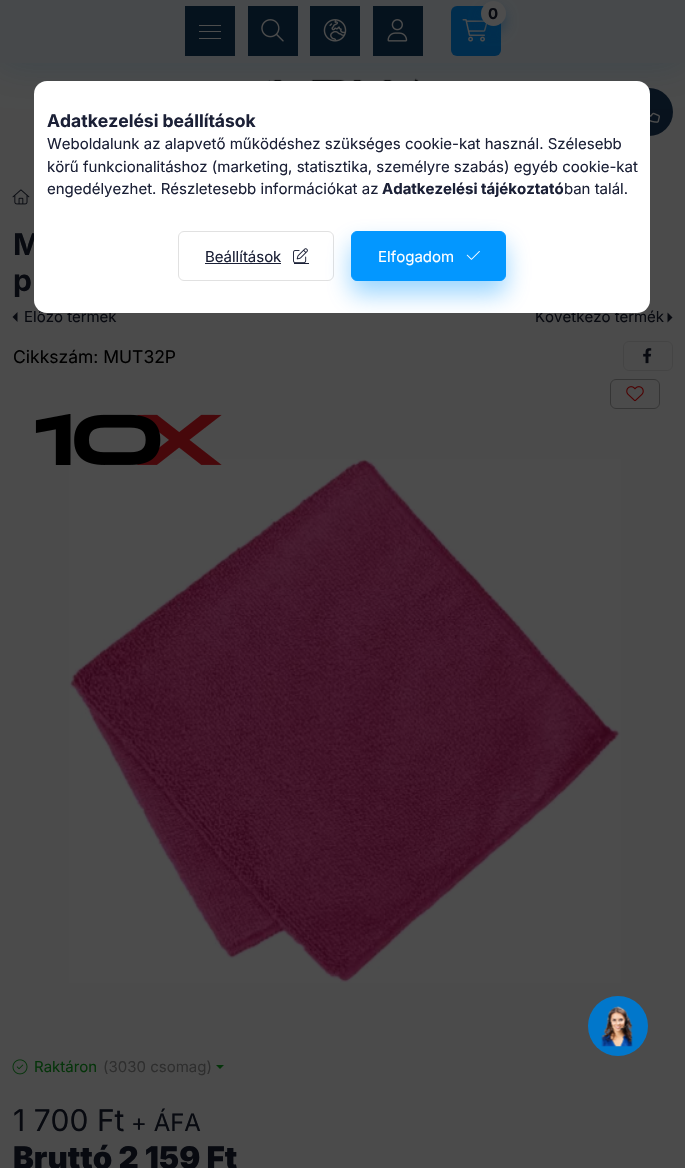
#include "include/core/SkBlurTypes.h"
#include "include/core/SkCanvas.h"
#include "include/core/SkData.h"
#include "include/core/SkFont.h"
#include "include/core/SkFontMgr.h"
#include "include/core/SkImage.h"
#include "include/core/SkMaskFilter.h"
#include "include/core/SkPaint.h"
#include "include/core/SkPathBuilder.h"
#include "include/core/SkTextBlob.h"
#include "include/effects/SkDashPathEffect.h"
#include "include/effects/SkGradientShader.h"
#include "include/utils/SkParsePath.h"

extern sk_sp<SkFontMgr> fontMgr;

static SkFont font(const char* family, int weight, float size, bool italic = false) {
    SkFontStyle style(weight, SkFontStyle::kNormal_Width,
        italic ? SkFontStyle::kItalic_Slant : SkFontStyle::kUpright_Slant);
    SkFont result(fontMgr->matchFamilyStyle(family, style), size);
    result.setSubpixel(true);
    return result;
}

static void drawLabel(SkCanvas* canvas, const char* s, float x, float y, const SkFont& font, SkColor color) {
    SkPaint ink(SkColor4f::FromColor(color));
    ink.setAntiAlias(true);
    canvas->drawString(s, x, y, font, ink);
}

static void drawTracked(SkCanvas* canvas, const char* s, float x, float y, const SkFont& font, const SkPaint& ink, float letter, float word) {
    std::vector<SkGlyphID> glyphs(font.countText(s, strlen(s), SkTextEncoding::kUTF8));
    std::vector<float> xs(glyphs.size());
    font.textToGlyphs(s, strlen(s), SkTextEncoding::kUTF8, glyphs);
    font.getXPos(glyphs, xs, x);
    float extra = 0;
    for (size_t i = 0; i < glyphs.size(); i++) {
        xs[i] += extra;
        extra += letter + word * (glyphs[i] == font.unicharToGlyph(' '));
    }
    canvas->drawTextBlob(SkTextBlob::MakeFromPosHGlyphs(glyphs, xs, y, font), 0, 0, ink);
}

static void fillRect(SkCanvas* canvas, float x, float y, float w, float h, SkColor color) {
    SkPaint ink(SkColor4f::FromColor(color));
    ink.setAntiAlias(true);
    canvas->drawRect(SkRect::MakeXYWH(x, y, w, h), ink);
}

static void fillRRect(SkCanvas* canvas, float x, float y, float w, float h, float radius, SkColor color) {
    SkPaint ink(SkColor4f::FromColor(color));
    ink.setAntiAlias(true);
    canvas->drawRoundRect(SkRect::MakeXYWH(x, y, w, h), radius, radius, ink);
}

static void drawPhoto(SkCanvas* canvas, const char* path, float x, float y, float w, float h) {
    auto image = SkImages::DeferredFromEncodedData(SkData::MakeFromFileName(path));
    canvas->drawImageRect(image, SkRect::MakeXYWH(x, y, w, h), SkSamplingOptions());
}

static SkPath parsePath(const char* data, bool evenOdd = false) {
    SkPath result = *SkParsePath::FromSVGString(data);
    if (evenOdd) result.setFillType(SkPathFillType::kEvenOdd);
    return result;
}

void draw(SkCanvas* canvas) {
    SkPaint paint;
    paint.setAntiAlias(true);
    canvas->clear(0xFF4B4B4B);
    drawPhoto(canvas, "assets/img5.png", 267, 78, 152, 3);
    paint.setColor(0xFF08121D);
    canvas->drawCircle(649, 112, 24, paint);
    drawPhoto(canvas, "assets/img6.png", 650, 112, 10, 11);
    paint.setColor(0x33012D4D);
    paint.setMaskFilter(SkMaskFilter::MakeBlur(kNormal_SkBlurStyle, 19));
    canvas->drawRect(SkRect::MakeXYWH(0, 0, 685, 63), paint);
    paint.setMaskFilter(nullptr);
    fillRect(canvas, 0, 0, 685, 63, 0xFF47494B);
    fillRect(canvas, 185, 6, 50, 50, 0xFF05121D);
    fillRect(canvas, 199, 25, 22, 1, 0xFF4D4D4D);
    fillRect(canvas, 199, 31, 22, 1, 0xFF4D4D4D);
    fillRect(canvas, 199, 38, 22, 1, 0xFF4D4D4D);
    fillRect(canvas, 248, 6, 50, 50, 0xFF05121D);
    drawPhoto(canvas, "assets/img1.png", 261, 19, 23, 23);
    fillRect(canvas, 310, 6, 50, 50, 0xFF05121D);
    drawPhoto(canvas, "assets/img2.png", 323, 19, 24, 23);
    fillRect(canvas, 373, 6, 50, 50, 0xFF05121D);
    drawPhoto(canvas, "assets/img3.png", 387, 19, 21, 23);
    fillRRect(canvas, 451, 6, 50, 50, 6, 0xFF012D4D);
    drawPhoto(canvas, "assets/img4.png", 462, 19, 26, 23);
    paint.setColor(0x66012D4D);
    paint.setMaskFilter(SkMaskFilter::MakeBlur(kNormal_SkBlurStyle, 6));
    canvas->drawRoundRect(SkRect::MakeXYWH(481, 8, 25, 25), 12.5f, 12.5f, paint);
    paint.setMaskFilter(nullptr);
    paint.setColor(0xFF4D4D4D);
    canvas->drawCircle(493.5f, 13.5f, 12.5f, paint);
    SkFont font1 = font("Inter", 700, 15);
    drawLabel(canvas, "0", 488, 19, font1, 0xFF080A10);
    drawPhoto(canvas, "assets/img7.png", 12, 189, 18, 16);
    SkFont font2 = font("Inter", 700, 30);
    paint.setColor(0xFF080A10);
    drawTracked(canvas, "M", 13, 255, font2, paint, 0, -1);
    drawLabel(canvas, "p", 13, 291, font2, 0xFF080A10);
    canvas->drawPath(parsePath("M17.5 322V312L12.5 317Z"), paint);
    SkFont font3 = font("Inter", 400, 15);
    drawLabel(canvas, "Előző termék", 24, 322, font3, 0xFF080A10);
    drawLabel(canvas, "Következő termék", 535, 322, font3, 0xFF080A10);
    canvas->drawPath(parsePath("M667.5 322.5V312.5L672.5 317.5Z"), paint);
    SkFont font4 = font("Inter", 400, 17.5f);
    drawLabel(canvas, "Cikkszám: MUT32P", 13, 363, font4, 0xFF000000);
    paint.setStroke(true);
    paint.setStrokeWidth(1);
    paint.setColor(0xFF444444);
    canvas->drawRoundRect(SkRect::MakeXYWH(623.5f, 341.5f, 49, 29), 5.5f, 5.5f, paint);
    drawPhoto(canvas, "assets/img8.png", 643, 348, 9, 16);
    paint.setColor(0xFF353535);
    canvas->drawRoundRect(SkRect::MakeXYWH(610.5f, 379.5f, 49, 29), 5.5f, 5.5f, paint);
    drawPhoto(canvas, "assets/img9.png", 626, 386, 18, 16);
    drawPhoto(canvas, "assets/img11.png", 69, 459, 552, 524);
    drawPhoto(canvas, "assets/img10.png", 35, 414, 187, 51);
    drawPhoto(canvas, "assets/img12.png", 12, 1059, 16, 16);
    drawLabel(canvas, "Raktáron", 34, 1072, font3, 0xFF05340A);
    drawLabel(canvas, "(3030 csomag)", 103, 1072, font3, 0xFF2E2E2E);
    paint.setStroke(false);
    paint.setColor(0xFF05340A);
    canvas->drawPath(parsePath("M216 1065H224L220 1069Z"), paint);
    SkFont font5 = font("Inter", 400, 30);
    drawLabel(canvas, "1 700 Ft", 13, 1131, font5, 0xFF080A10);
    SkFont font6 = font("Inter", 400, 24);
    drawLabel(canvas, "+ ÁFA", 131, 1131, font6, 0xFF080A10);
    SkFont font7 = font("Inter", 900, 31.25f);
    drawLabel(canvas, "Bruttó 2 159 Ft", 13, 1169, font7, 0xFF080A10);
    fillRRect(canvas, 34, 81, 616, 232, 13, 0xFFFFFFFF);
    SkFont font8 = font("Inter", 700, 17.5f);
    drawLabel(canvas, "Adatkezelési beállítások", 47, 127, font8, 0xFF1B2036);
    drawLabel(canvas, "Weboldalunk az alapvető működéshez szükséges cookie-kat használ. Szélesebb", 47, 149, font3, 0xFF1B2036);
    drawLabel(canvas, "körű funkcionalitáshoz (marketing, statisztika, személyre szabás) egyéb cookie-kat", 47, 172, font3, 0xFF1B2036);
    drawLabel(canvas, "engedélyezhet. Részletesebb információkat az", 47, 194, font3, 0xFF1B2036);
    drawLabel(canvas, "Adatkezelési tájékoztató", 382, 194, font1, 0xFF1B2036);
    drawLabel(canvas, "ban talál.", 564, 194, font3, 0xFF1B2036);
    paint.setStroke(true);
    paint.setColor(0xFFE1E1E1);
    canvas->drawRoundRect(SkRect::MakeXYWH(178.5f, 231.5f, 155, 49), 5.5f, 5.5f, paint);
    drawLabel(canvas, "Beállítások", 205, 262, font3, 0xFF1B2036);
    fillRect(canvas, 205, 263, 76, 1, 0xFF1B2036);
    drawPhoto(canvas, "assets/img13.png", 293, 248, 15, 15);
    fillRect(canvas, 294, 263, 15, 1, 0xFF1B2036);
    canvas->save();
    canvas->clipPath(parsePath("M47 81H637C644 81 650 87 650 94V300C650 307 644 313 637 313H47C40 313 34 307 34 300V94C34 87 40 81 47 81Z"), true);
    paint.setStroke(false);
    paint.setColor(0x660397FF);
    paint.setMaskFilter(SkMaskFilter::MakeBlur(kNormal_SkBlurStyle, 12.5f));
    canvas->drawRoundRect(SkRect::MakeXYWH(351, 244, 155, 50), 6, 6, paint);
    paint.setMaskFilter(nullptr);
    canvas->restore();
    paint.setColor(0xFF0397FF);
    canvas->drawRoundRect(SkRect::MakeXYWH(351.5f, 231.5f, 154, 49), 5.5f, 5.5f, paint);
    paint.setStroke(true);
    canvas->drawRoundRect(SkRect::MakeXYWH(351.5f, 231.5f, 154, 49), 5.5f, 5.5f, paint);
    drawLabel(canvas, "Elfogadom", 378, 262, font3, 0xFFFFFFFF);
    drawPhoto(canvas, "assets/img14.png", 466, 251, 14, 9);
    paint.setStroke(false);
    paint.setColor(0xFF0177CB);
    canvas->drawCircle(618, 1026, 30, paint);
    drawPhoto(canvas, "assets/img15.png", 601, 1006, 32, 41);
}
